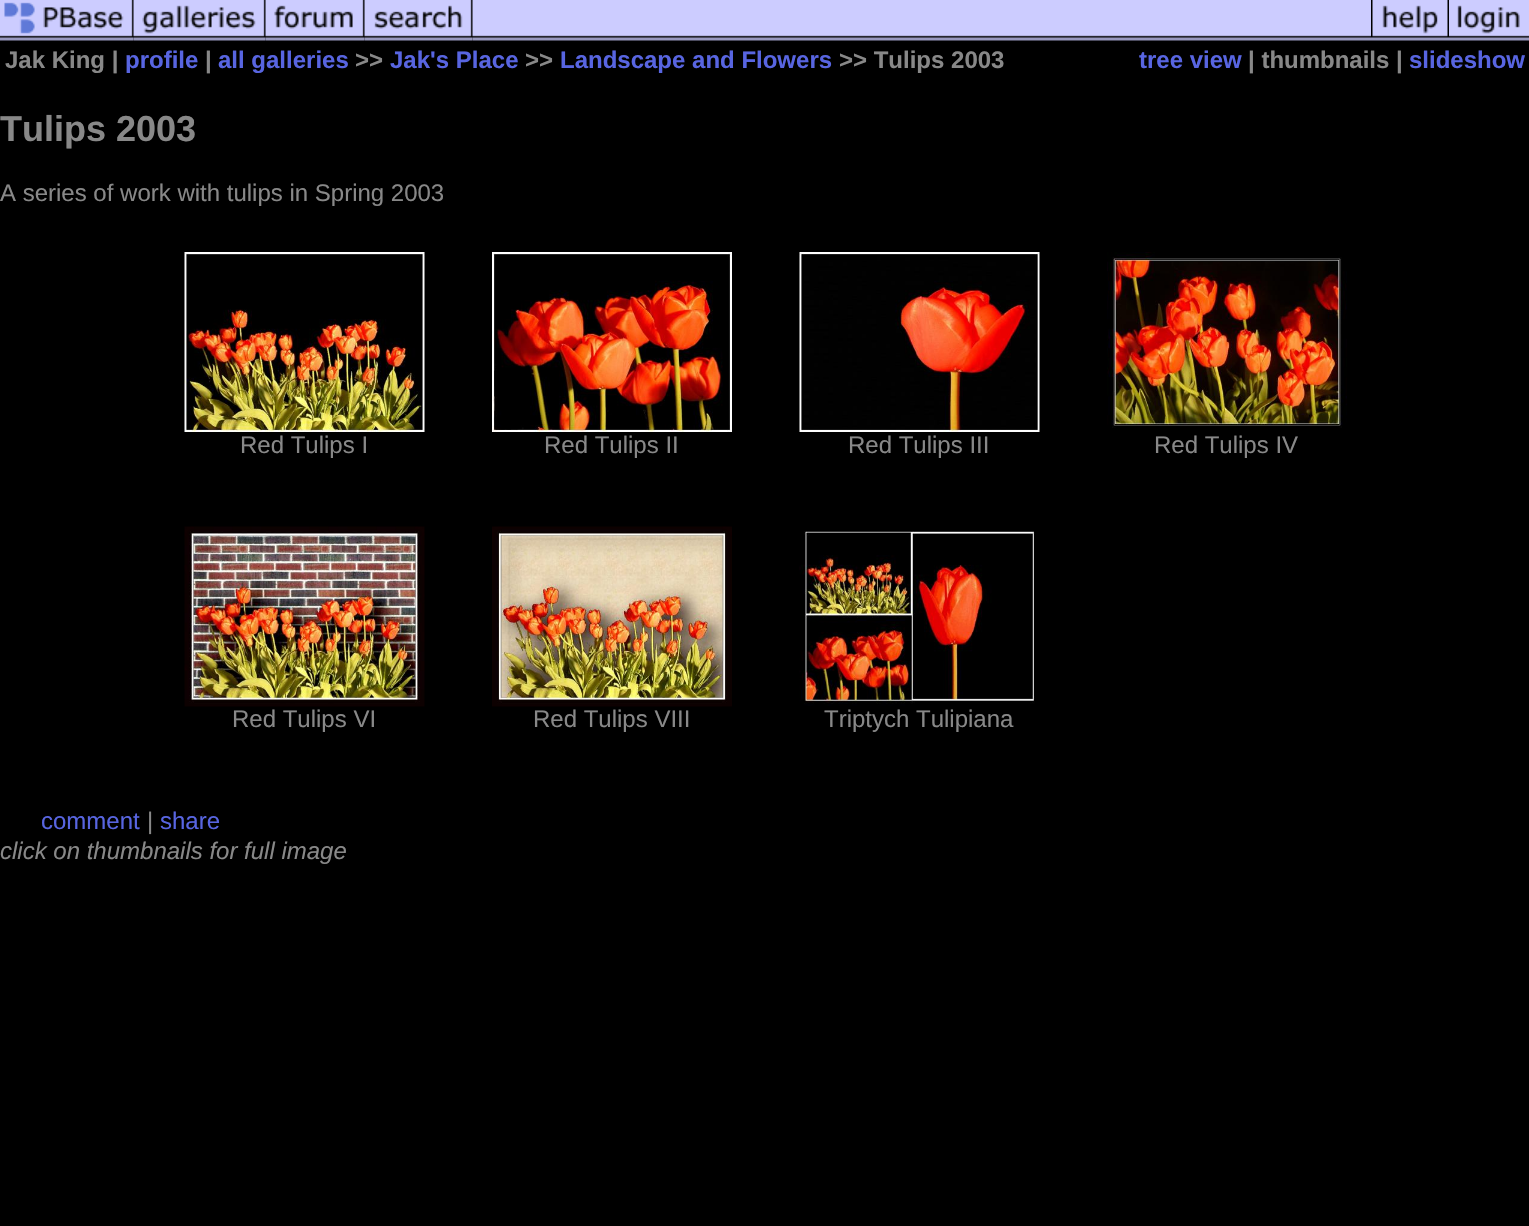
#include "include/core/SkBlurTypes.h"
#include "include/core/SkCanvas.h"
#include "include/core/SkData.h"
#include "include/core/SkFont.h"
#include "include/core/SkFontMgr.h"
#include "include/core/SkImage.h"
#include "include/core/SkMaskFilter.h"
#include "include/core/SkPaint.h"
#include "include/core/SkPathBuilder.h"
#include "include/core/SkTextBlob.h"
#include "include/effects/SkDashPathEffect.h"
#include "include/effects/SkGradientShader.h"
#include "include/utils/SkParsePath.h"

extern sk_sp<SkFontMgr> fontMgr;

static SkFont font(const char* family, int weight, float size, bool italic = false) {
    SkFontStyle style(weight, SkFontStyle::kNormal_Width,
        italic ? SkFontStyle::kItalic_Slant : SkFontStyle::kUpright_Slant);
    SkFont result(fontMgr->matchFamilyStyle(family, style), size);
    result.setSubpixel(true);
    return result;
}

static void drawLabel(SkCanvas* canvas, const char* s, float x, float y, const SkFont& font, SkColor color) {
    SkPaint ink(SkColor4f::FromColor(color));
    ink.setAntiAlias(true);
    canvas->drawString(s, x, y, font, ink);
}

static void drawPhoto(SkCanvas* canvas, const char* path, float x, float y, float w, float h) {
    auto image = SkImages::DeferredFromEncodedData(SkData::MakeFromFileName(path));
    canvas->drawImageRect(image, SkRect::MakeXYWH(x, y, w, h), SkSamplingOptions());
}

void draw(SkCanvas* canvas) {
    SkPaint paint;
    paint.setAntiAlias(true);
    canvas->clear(0xFF000000);
    drawPhoto(canvas, "assets/img1.png", 0, 0, 134, 41);
    drawPhoto(canvas, "assets/img2.png", 133, 0, 133, 41);
    drawPhoto(canvas, "assets/img3.png", 265, 0, 100, 41);
    drawPhoto(canvas, "assets/img4.png", 364, 0, 109, 41);
    drawPhoto(canvas, "assets/img5.png", 472, 0, 899, 41);
    drawPhoto(canvas, "assets/img6.png", 1371, 0, 78, 41);
    drawPhoto(canvas, "assets/img7.png", 1449, 0, 80, 41);
    SkFont font1 = font("Liberation Sans", 700, 24);
    drawLabel(canvas, "Jak King |", 5, 68, font1, 0xFF888888);
    drawLabel(canvas, "profile", 125, 68, font1, 0xFF5865E1);
    drawLabel(canvas, "|", 205, 68, font1, 0xFF888888);
    drawLabel(canvas, "all galleries", 218, 68, font1, 0xFF5865E1);
    drawLabel(canvas, ">>", 355, 68, font1, 0xFF888888);
    drawLabel(canvas, "Jak's Place", 390, 68, font1, 0xFF5865E1);
    drawLabel(canvas, ">>", 525, 68, font1, 0xFF888888);
    drawLabel(canvas, "Landscape and Flowers", 560, 68, font1, 0xFF5865E1);
    drawLabel(canvas, ">> Tulips 2003", 839, 68, font1, 0xFF888888);
    drawLabel(canvas, "tree view", 1139, 68, font1, 0xFF5865E1);
    drawLabel(canvas, "| thumbnails |", 1248, 68, font1, 0xFF888888);
    drawLabel(canvas, "slideshow", 1409, 68, font1, 0xFF5865E1);
    SkFont font2 = font("Liberation Sans", 700, 36);
    drawLabel(canvas, "Tulips 2003", 0, 141, font2, 0xFF888888);
    SkFont font3 = font("Liberation Sans", 400, 24);
    drawLabel(canvas, "A series of work with tulips in Spring 2003", 0, 201, font3, 0xFF888888);
    drawPhoto(canvas, "assets/img8.png", 184, 252, 241, 180);
    drawLabel(canvas, "Red Tulips I", 240, 453, font3, 0xFF888888);
    drawPhoto(canvas, "assets/img9.png", 492, 252, 240, 180);
    drawLabel(canvas, "Red Tulips II", 544, 453, font3, 0xFF888888);
    drawPhoto(canvas, "assets/img10.png", 799, 252, 241, 180);
    drawLabel(canvas, "Red Tulips III", 848, 453, font3, 0xFF888888);
    drawPhoto(canvas, "assets/img11.png", 1107, 252, 240, 176);
    drawLabel(canvas, "Red Tulips IV", 1154, 453, font3, 0xFF888888);
    drawPhoto(canvas, "assets/img12.png", 184, 526, 241, 181);
    drawLabel(canvas, "Red Tulips VI", 232, 727, font3, 0xFF888888);
    drawPhoto(canvas, "assets/img13.png", 492, 526, 240, 181);
    drawLabel(canvas, "Red Tulips VIII", 533, 727, font3, 0xFF888888);
    drawPhoto(canvas, "assets/img14.png", 799, 531, 236, 175);
    drawLabel(canvas, "Triptych Tulipiana", 824, 727, font3, 0xFF888888);
    drawLabel(canvas, "comment", 41, 829, font3, 0xFF5865E1);
    drawLabel(canvas, "|", 147, 829, font3, 0xFF888888);
    drawLabel(canvas, "share", 160, 829, font3, 0xFF5865E1);
    SkFont font4 = font("Liberation Sans", 400, 24, true);
    drawLabel(canvas, "click on thumbnails for full image", 0, 859, font4, 0xFF888888);
}
